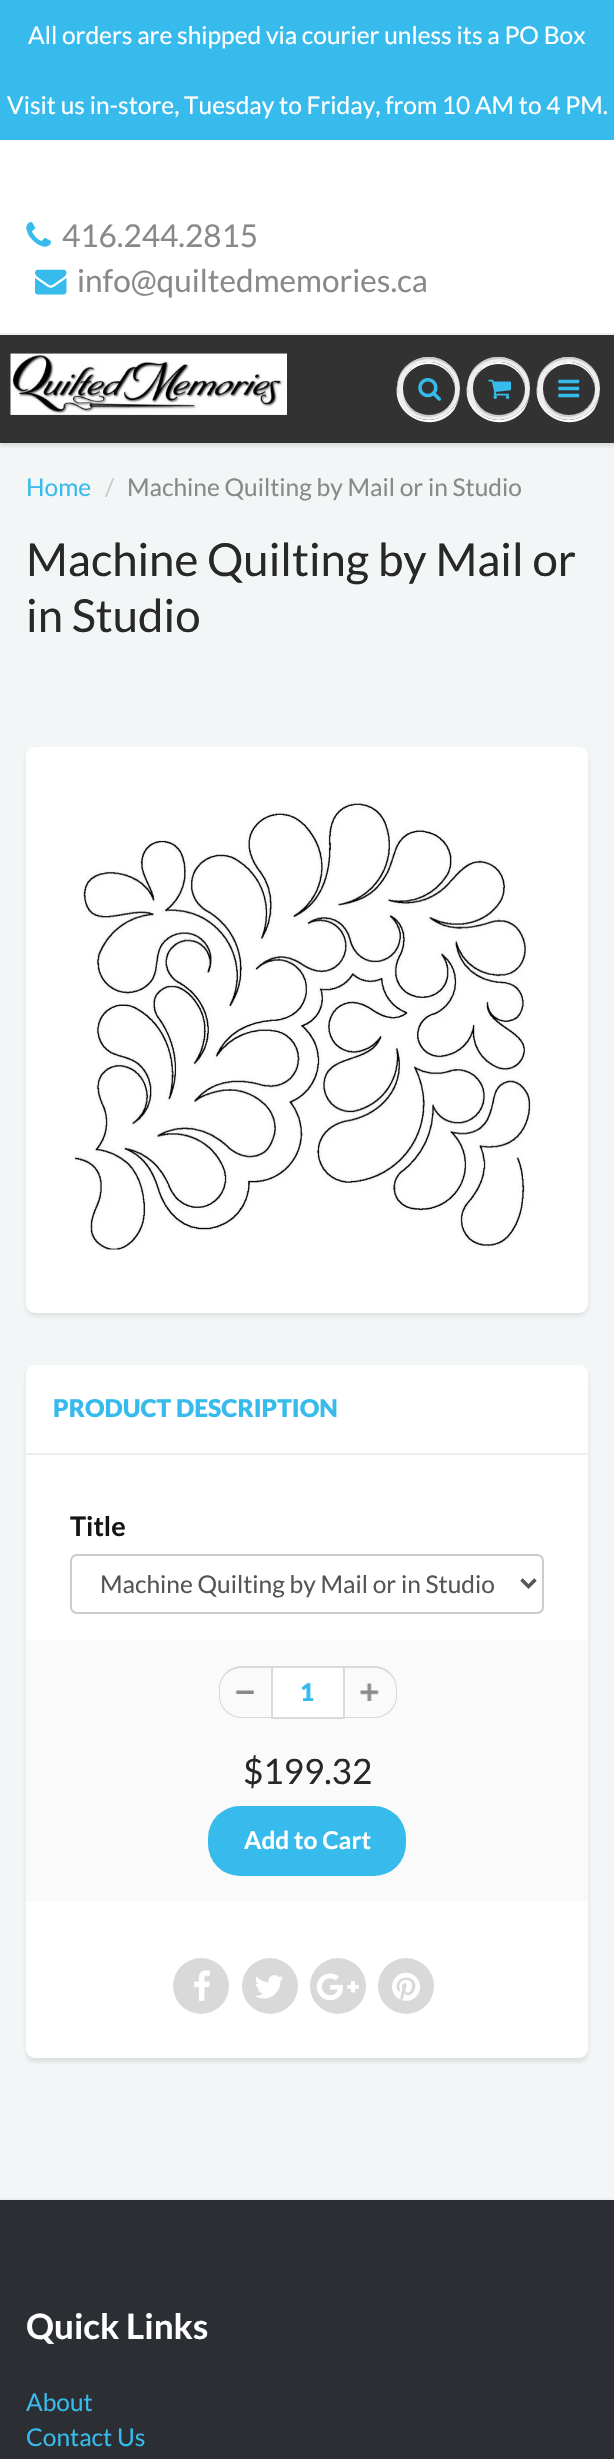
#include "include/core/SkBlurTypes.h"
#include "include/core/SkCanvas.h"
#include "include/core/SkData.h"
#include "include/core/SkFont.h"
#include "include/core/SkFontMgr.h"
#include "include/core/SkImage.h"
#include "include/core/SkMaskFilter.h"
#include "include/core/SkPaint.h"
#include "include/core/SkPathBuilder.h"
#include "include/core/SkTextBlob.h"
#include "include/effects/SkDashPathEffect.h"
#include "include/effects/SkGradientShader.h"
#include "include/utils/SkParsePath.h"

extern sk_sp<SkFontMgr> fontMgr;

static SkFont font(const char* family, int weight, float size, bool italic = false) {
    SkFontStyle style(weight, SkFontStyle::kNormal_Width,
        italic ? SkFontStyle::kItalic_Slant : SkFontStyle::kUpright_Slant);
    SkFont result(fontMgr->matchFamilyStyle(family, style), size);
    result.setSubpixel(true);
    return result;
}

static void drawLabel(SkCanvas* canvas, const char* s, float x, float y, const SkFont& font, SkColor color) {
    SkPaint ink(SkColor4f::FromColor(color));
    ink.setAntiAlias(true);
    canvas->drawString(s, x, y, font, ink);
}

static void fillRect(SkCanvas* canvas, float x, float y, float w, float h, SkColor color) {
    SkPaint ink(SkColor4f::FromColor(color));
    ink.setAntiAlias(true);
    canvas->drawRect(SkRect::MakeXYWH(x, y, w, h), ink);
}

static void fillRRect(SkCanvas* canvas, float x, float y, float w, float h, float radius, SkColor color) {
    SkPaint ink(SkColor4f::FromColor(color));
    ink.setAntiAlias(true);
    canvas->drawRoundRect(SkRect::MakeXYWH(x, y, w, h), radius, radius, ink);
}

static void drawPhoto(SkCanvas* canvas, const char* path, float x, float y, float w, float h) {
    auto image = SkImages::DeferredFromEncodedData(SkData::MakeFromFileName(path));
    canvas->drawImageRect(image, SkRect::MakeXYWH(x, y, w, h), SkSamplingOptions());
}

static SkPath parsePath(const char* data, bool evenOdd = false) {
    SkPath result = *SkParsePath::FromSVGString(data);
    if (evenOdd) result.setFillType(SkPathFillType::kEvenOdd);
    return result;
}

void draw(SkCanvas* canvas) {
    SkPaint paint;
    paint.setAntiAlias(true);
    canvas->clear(0xFFFFFFFF);
    fillRect(canvas, 0, 0, 614, 140, 0xFF37BBEC);
    SkFont font1 = font("Lato", 400, 24.5f);
    drawLabel(canvas, "All orders are shipped via courier unless its a PO Box", 28, 44, font1, 0xFFFFFFFF);
    drawLabel(canvas, "Visit us in-store, Tuesday to Friday, from 10 AM to 4 PM.", 7, 114, font1, 0xFFFFFFFF);
    drawPhoto(canvas, "assets/img1.png", 26, 222, 25, 25);
    SkFont font2 = font("Lato", 400, 31.5f);
    drawLabel(canvas, "416.244.2815", 62, 247, font2, 0xFF898989);
    drawPhoto(canvas, "assets/img2.png", 35, 269, 32, 26);
    drawLabel(canvas, "info@quiltedmemories.ca", 77, 292, font2, 0xFF898989);
    fillRect(canvas, 0, 443, 614, 1755, 0xFFF3F6F6);
    paint.setColor(0x1F0B191C);
    paint.setMaskFilter(SkMaskFilter::MakeBlur(kNormal_SkBlurStyle, 2));
    canvas->drawRect(SkRect::MakeXYWH(0, 336, 614, 110), paint);
    paint.setMaskFilter(nullptr);
    fillRect(canvas, 0, 335, 614, 108, 0xFF323232);
    fillRect(canvas, 0, 333, 614, 2, 0xFFECEFEF);
    drawPhoto(canvas, "assets/img3.png", 10, 353, 277, 62);
    paint.setColor(0xFFFFFFFF);
    canvas->drawPath(parsePath("M397 386C392 417 434 436 454 410C457 405 459 399 460 393C455 421 419 430 403 406C399 400 397 393 397 386Z"), paint);
    paint.setColor(0xFFEDEFEF);
    canvas->drawCircle(428.5f, 388.5f, 31.5f, paint);
    paint.setColor(0xFFC9CBCB);
    canvas->drawPath(parsePath("M403 395C408 427 456 423 455 389C454 419 411 424 403 395Z"), paint);
    canvas->drawPath(parsePath("M429 359C446 359 460 373 460 389C460 383 458 376 455 371C437 345 396 358 397 389C397 373 411 359 429 359Z"), paint);
    fillRRect(canvas, 403, 362, 52, 53, 26, 0xFF323232);
    paint.setColor(0xFFFFFFFF);
    canvas->drawPath(parsePath("M429 364C443 364 455 376 455 390C456 360 415 351 405 379C409 370 418 364 429 364Z"), paint);
    drawPhoto(canvas, "assets/img4.png", 418, 378, 23, 23);
    canvas->drawPath(parsePath("M467 386C462 417 504 436 524 410C527 405 529 399 530 393C525 421 489 430 473 406C469 400 467 393 467 386Z"), paint);
    paint.setColor(0xFFEDEFEF);
    canvas->drawCircle(498.5f, 388.5f, 31.5f, paint);
    paint.setColor(0xFFC9CBCB);
    canvas->drawPath(parsePath("M525 389C524 419 481 424 473 395C478 427 526 423 525 389Z"), paint);
    canvas->drawPath(parsePath("M499 359C516 359 530 373 530 389C531 358 490 345 472 371C469 376 467 383 467 389C467 373 481 359 499 359Z"), paint);
    fillRRect(canvas, 473, 362, 52, 53, 26, 0xFF323232);
    paint.setColor(0xFFFFFFFF);
    canvas->drawPath(parsePath("M499 364C513 364 525 376 525 390C526 360 485 351 475 379C479 370 488 364 499 364Z"), paint);
    drawPhoto(canvas, "assets/img5.png", 488, 379, 23, 20);
    canvas->drawPath(parsePath("M537 386C532 417 574 436 594 410C597 405 599 399 600 393C595 421 559 430 543 406C539 400 537 393 537 386Z"), paint);
    paint.setColor(0xFFEDEFEF);
    canvas->drawCircle(568.5f, 388.5f, 31.5f, paint);
    paint.setColor(0xFFC9CBCB);
    canvas->drawPath(parsePath("M595 389C594 419 551 424 543 395C548 427 596 423 595 389Z"), paint);
    canvas->drawPath(parsePath("M569 359C586 359 600 373 600 389C600 383 598 376 595 371C577 345 536 358 537 389C537 373 551 359 569 359Z"), paint);
    fillRRect(canvas, 543, 362, 52, 53, 26, 0xFF323232);
    paint.setColor(0xFFFFFFFF);
    canvas->drawPath(parsePath("M569 364C583 364 595 376 595 390C596 360 555 351 545 379C549 370 558 364 569 364Z"), paint);
    drawPhoto(canvas, "assets/img6.png", 558, 379, 22, 19);
    drawLabel(canvas, "Home", 26, 496, font1, 0xFF37BBEC);
    drawLabel(canvas, "/", 105, 496, font1, 0xFFCCCCCC);
    drawLabel(canvas, "Machine Quilting by Mail or in Studio", 127, 496, font1, 0xFF898989);
    SkFont font3 = font("Lato", 400, 45.5f);
    drawLabel(canvas, "Machine Quilting by Mail or", 26, 576, font3, 0xFF282827);
    drawLabel(canvas, "in Studio", 26, 632, font3, 0xFF282827);
    paint.setColor(0x1A0B191C);
    paint.setMaskFilter(SkMaskFilter::MakeBlur(kNormal_SkBlurStyle, 2));
    canvas->drawRoundRect(SkRect::MakeXYWH(26, 751, 562, 565), 9, 9, paint);
    paint.setMaskFilter(nullptr);
    fillRRect(canvas, 26, 747, 562, 566, 9, 0xFFFFFFFF);
    drawPhoto(canvas, "assets/img7.png", 72, 802, 461, 448);
    paint.setMaskFilter(SkMaskFilter::MakeBlur(kNormal_SkBlurStyle, 2));
    canvas->drawRoundRect(SkRect::MakeXYWH(26, 1369, 562, 693), 9, 9, paint);
    paint.setMaskFilter(nullptr);
    fillRRect(canvas, 26, 1365, 562, 693, 9, 0xFFFFFFFF);
    fillRect(canvas, 26, 1453, 562, 2, 0xFFEFEFEF);
    SkFont font4 = font("Lato", 900, 24.5f);
    drawLabel(canvas, "PRODUCT DESCRIPTION", 53, 1417, font4, 0xFF37BBEC);
    SkFont font5 = font("Lato", 700, 27);
    drawLabel(canvas, "Title", 70, 1536, font5, 0xFF141414);
    paint.setStroke(true);
    paint.setStrokeWidth(2);
    paint.setColor(0xFFCCCCCC);
    canvas->drawRoundRect(SkRect::MakeXYWH(71, 1555, 472, 58), 6, 6, paint);
    paint.setStrokeWidth(3.5f);
    paint.setColor(0xFF555555);
    canvas->drawPath(parsePath("M521.5 1579.5L528.5 1586.5L535.5 1579.5"), paint);
    drawLabel(canvas, "Machine Quilting by Mail or in Studio", 100, 1593, font1, 0xFF555555);
    fillRect(canvas, 26, 1640, 562, 262, 0xFFFAFAFA);
    drawPhoto(canvas, "assets/img8.png", 235, 1690, 19, 4);
    paint.setStroke(false);
    paint.setColor(0xFFD7DBDB);
    canvas->drawPath(parsePath("M242 1666H271V1718H242C229 1718 219 1708 219 1696V1689C219 1676 229 1666 242 1666ZM242 1668H271V1717H242C230 1717 220 1707 220 1696V1689C220 1677 230 1668 242 1668Z", true), paint);
    paint.setColor(0xFFFFFFFF);
    canvas->drawRect(SkRect::MakeXYWH(272, 1667, 72, 51), paint);
    paint.setStroke(true);
    paint.setStrokeWidth(2);
    paint.setColor(0xFFD7DBDB);
    canvas->drawRect(SkRect::MakeXYWH(272, 1667, 72, 51), paint);
    drawLabel(canvas, "1", 300, 1701, font4, 0xFF37BBEC);
    drawPhoto(canvas, "assets/img9.png", 359, 1683, 20, 18);
    paint.setStroke(false);
    canvas->drawPath(parsePath("M345 1666H374C387 1666 397 1676 397 1689V1696C397 1708 387 1718 374 1718H345ZM345 1668H374C386 1668 396 1677 396 1689V1696C396 1707 386 1717 374 1717H345Z", true), paint);
    SkFont font6 = font("Lato", 400, 35);
    drawLabel(canvas, "$199.32", 243, 1784, font6, 0xFF282827);
    fillRRect(canvas, 208, 1806, 198, 70, 32, 0xFF37BBEC);
    SkFont font7 = font("Lato", 700, 24.5f);
    drawLabel(canvas, "Add to Cart", 244, 1849, font7, 0xFFFFFFFF);
    paint.setColor(0xFFD9D9D9);
    canvas->drawCircle(201, 1986, 28, paint);
    drawPhoto(canvas, "assets/img10.png", 194, 1970, 16, 31);
    canvas->drawCircle(270, 1986, 28, paint);
    drawPhoto(canvas, "assets/img11.png", 255, 1975, 28, 24);
    canvas->drawCircle(338, 1986, 28, paint);
    drawPhoto(canvas, "assets/img12.png", 316, 1973, 43, 28);
    canvas->drawCircle(406, 1986, 28, paint);
    drawPhoto(canvas, "assets/img13.png", 392, 1972, 28, 29);
    fillRect(canvas, 0, 2200, 614, 259, 0xFF2B2E32);
    fillRect(canvas, 0, 2198, 614, 2, 0xFFECEFEF);
    SkFont font8 = font("Lato", 700, 35);
    drawLabel(canvas, "Quick Links", 26, 2339, font8, 0xFFFFFFFF);
    drawLabel(canvas, "About", 26, 2411, font1, 0xFF37BBEC);
    drawLabel(canvas, "Contact Us", 26, 2446, font1, 0xFF37BBEC);
}
